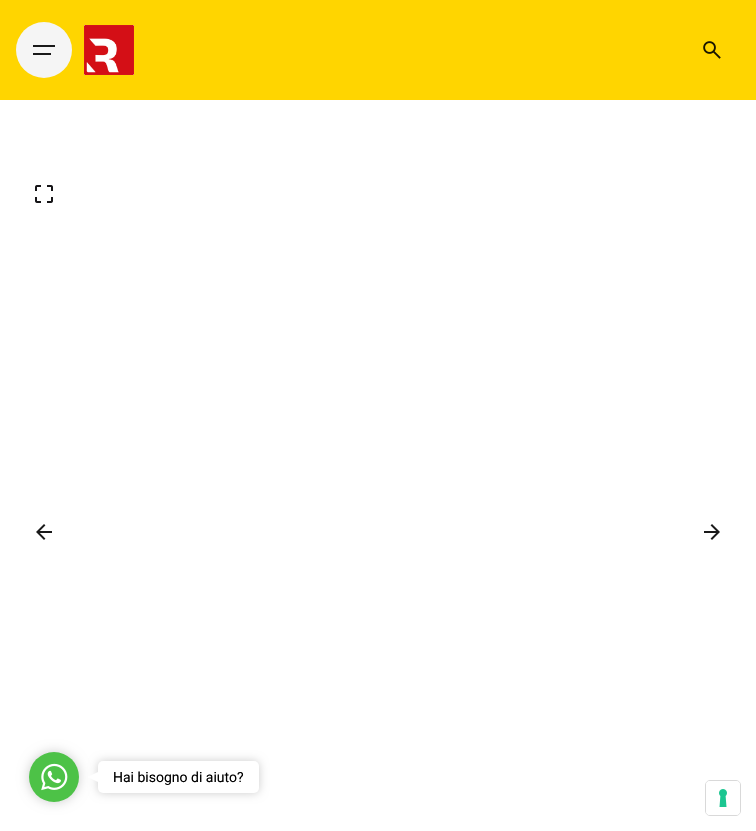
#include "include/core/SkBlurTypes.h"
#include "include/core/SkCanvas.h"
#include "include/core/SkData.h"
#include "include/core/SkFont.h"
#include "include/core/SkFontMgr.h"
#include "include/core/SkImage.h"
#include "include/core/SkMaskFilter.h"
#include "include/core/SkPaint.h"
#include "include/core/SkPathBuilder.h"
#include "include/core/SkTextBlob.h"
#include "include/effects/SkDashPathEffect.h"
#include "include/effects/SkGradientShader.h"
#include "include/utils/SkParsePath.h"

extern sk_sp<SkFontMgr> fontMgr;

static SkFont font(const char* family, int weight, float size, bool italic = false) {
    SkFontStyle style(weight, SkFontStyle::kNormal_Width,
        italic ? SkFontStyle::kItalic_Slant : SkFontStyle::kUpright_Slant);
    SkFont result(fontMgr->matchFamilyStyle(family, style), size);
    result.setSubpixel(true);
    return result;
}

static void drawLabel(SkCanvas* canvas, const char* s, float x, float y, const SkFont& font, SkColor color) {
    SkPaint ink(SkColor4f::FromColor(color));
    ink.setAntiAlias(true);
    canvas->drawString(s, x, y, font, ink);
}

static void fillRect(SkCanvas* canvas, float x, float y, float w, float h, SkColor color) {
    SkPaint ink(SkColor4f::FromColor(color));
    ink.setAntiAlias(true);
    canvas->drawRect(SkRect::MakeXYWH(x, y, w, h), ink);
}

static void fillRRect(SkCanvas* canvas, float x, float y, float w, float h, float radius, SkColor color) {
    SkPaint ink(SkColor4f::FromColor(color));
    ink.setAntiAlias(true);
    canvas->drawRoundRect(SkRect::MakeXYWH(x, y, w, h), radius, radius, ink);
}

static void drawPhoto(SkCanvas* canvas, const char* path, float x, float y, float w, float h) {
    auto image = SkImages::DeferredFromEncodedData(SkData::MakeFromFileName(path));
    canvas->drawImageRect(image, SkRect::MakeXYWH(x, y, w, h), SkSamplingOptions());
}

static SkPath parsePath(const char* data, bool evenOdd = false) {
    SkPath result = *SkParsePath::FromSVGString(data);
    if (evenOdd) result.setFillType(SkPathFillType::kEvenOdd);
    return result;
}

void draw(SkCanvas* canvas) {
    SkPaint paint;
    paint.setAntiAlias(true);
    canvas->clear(0xFFFFFFFF);
    fillRect(canvas, 0, 0, 756, 100, 0xFFFFD500);
    paint.setColor(0xFFF5F5F5);
    canvas->drawCircle(44, 50, 28, paint);
    fillRect(canvas, 33, 45, 22, 2, 0xFF191919);
    fillRect(canvas, 33, 53, 18, 2, 0xFF191919);
    drawPhoto(canvas, "assets/img1.png", 84, 25, 50, 50);
    drawPhoto(canvas, "assets/img2.png", 703, 41, 18, 18);
    drawPhoto(canvas, "assets/img3.png", 35, 185, 18, 18);
    drawPhoto(canvas, "assets/img4.png", 36, 524, 16, 16);
    drawPhoto(canvas, "assets/img5.png", 704, 524, 16, 16);
    paint.setColor(0x33000000);
    paint.setMaskFilter(SkMaskFilter::MakeBlur(kNormal_SkBlurStyle, 6));
    canvas->drawRoundRect(SkRect::MakeXYWH(29, 752, 50, 50), 25, 25, paint);
    paint.setMaskFilter(nullptr);
    paint.setColor(0xFF4DC247);
    canvas->drawCircle(54, 777, 25, paint);
    drawPhoto(canvas, "assets/img6.png", 41, 763, 27, 28);
    paint.setColor(0x33000000);
    paint.setMaskFilter(SkMaskFilter::MakeBlur(kNormal_SkBlurStyle, 5));
    canvas->drawRoundRect(SkRect::MakeXYWH(98, 761, 161, 32), 5, 5, paint);
    paint.setMaskFilter(nullptr);
    fillRRect(canvas, 98, 761, 161, 32, 5, 0xFFFFFFFF);
    paint.setColor(0xFFFFFFFF);
    canvas->drawPath(parsePath("M98 772V782L87 777Z"), paint);
    SkFont font1 = font("Roboto", 400, 14);
    drawLabel(canvas, "Hai bisogno di aiuto?", 113, 782, font1, 0xFF000000);
    paint.setStroke(true);
    paint.setStrokeWidth(1);
    paint.setColor(0xFFD9D9D9);
    canvas->drawRoundRect(SkRect::MakeXYWH(705.5f, 780.5f, 35, 35), 4.5f, 4.5f, paint);
    fillRRect(canvas, 706, 781, 34, 34, 4, 0xFFFFFFFF);
    drawPhoto(canvas, "assets/img7.png", 719, 789, 8, 18);
}
